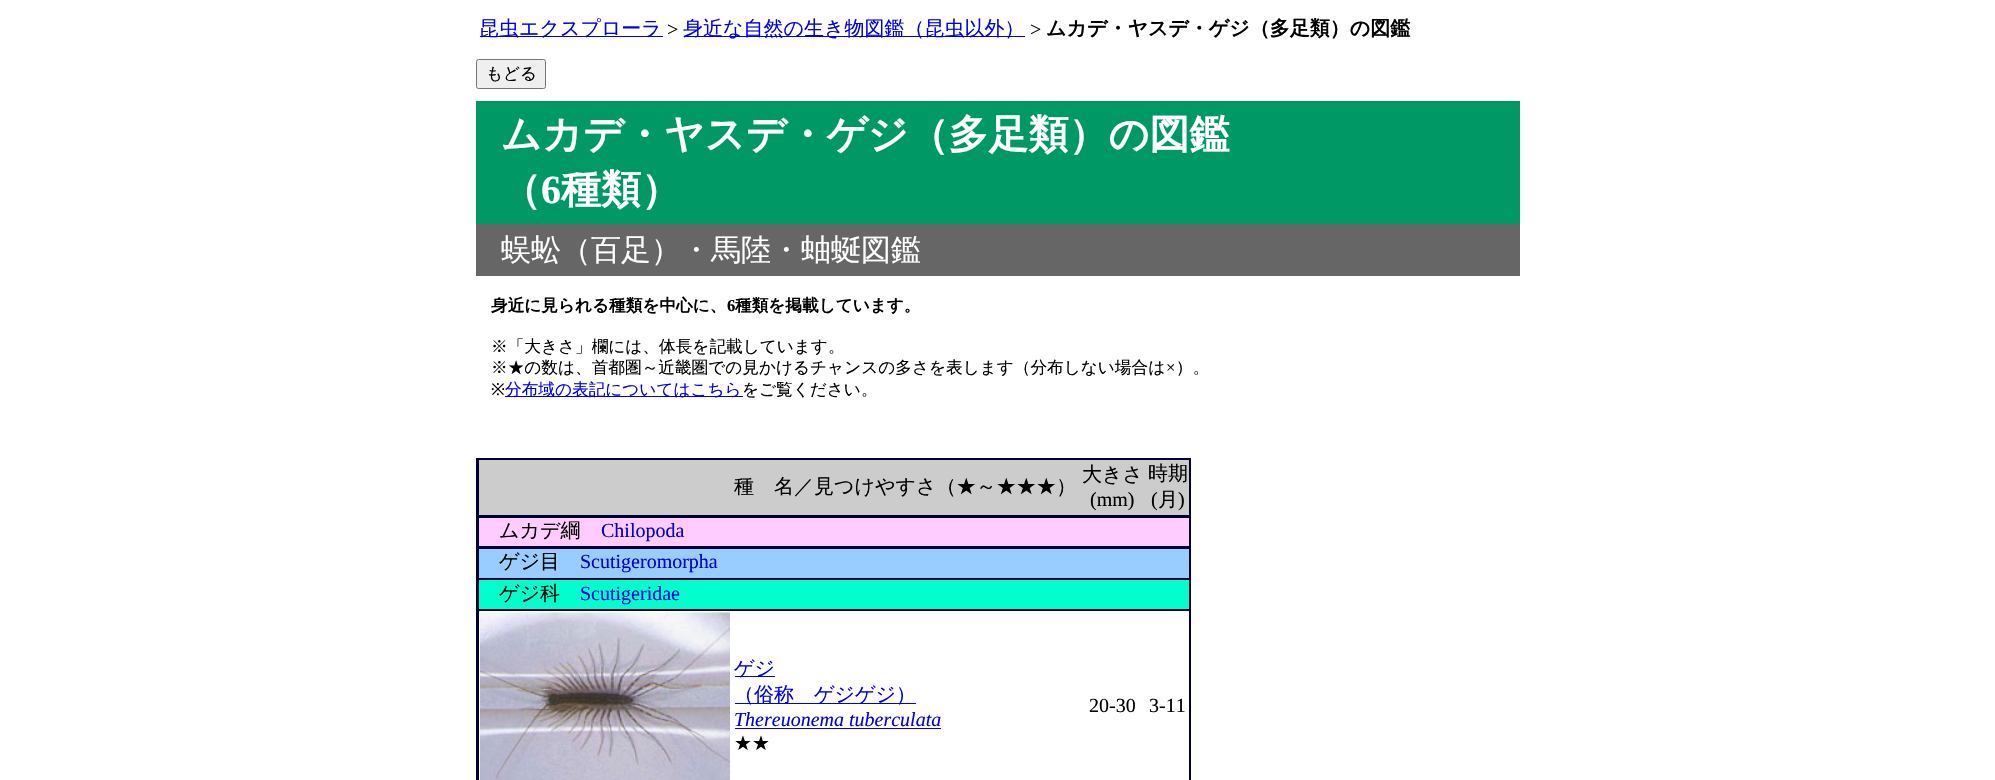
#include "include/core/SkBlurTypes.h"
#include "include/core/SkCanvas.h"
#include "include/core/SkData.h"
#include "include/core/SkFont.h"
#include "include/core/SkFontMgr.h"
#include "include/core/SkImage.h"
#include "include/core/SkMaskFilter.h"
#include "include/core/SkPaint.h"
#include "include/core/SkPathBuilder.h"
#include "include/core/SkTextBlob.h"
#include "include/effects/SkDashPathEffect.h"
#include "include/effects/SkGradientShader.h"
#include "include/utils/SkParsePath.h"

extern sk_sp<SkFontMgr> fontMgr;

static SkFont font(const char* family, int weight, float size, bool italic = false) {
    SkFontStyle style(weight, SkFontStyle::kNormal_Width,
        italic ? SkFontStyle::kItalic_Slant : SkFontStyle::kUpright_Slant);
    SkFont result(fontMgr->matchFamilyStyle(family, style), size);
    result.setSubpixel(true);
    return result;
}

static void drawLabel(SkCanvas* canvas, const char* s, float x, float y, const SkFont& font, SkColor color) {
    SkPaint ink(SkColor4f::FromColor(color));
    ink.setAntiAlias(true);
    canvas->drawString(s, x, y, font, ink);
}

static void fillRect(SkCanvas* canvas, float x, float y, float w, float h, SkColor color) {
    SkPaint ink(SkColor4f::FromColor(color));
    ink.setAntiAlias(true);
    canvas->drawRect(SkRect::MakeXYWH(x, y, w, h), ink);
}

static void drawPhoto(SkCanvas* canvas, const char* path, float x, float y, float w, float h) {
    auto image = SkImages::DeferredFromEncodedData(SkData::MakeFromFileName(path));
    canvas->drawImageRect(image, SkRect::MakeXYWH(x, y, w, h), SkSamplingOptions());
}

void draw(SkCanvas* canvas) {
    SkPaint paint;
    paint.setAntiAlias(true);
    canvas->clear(0xFFFFFFFF);
    fillRect(canvas, 480, 36, 183, 1, 0xFF0000EE);
    SkFont font1 = font("WenQuanYi Zen Hei", 500, 20);
    drawLabel(canvas, "昆虫エクスプローラ", 479, 35, font1, 0xFF0000EE);
    SkFont font2 = font("Liberation Serif", 400, 20);
    drawLabel(canvas, ">", 667, 36, font2, 0xFF000000);
    fillRect(canvas, 684, 36, 341, 1, 0xFF0000EE);
    drawLabel(canvas, "身近な自然の生き物図鑑（昆虫以外）", 683, 35, font1, 0xFF0000EE);
    drawLabel(canvas, ">", 1030, 36, font2, 0xFF000000);
    SkFont font3 = font("WenQuanYi Zen Hei", 700, 20);
    drawLabel(canvas, "ムカデ・ヤスデ・ゲジ（多足類）の図鑑", 1046, 35, font3, 0xFF000000);
    paint.setColor(0xFFEFEFEF);
    canvas->drawRoundRect(SkRect::MakeXYWH(476.5f, 59.5f, 69, 29), 2, 2, paint);
    paint.setStroke(true);
    paint.setStrokeWidth(1);
    paint.setColor(0xFF767676);
    canvas->drawRoundRect(SkRect::MakeXYWH(476.5f, 59.5f, 69, 29), 2, 2, paint);
    SkFont font4 = font("WenQuanYi Zen Hei", 500, 16.65f);
    drawLabel(canvas, "もどる", 486, 79, font4, 0xFF000000);
    fillRect(canvas, 476, 101, 1044, 123, 0xFF009966);
    SkFont font5 = font("WenQuanYi Zen Hei", 700, 40);
    drawLabel(canvas, "ムカデ・ヤスデ・ゲジ（多足類）の図鑑", 501, 148, font5, 0xFFFFFFFF);
    drawLabel(canvas, "（", 501, 203, font5, 0xFFFFFFFF);
    SkFont font6 = font("Liberation Serif", 700, 40);
    drawLabel(canvas, "6", 541, 203, font6, 0xFFFFFFFF);
    drawLabel(canvas, "種類）", 561, 203, font5, 0xFFFFFFFF);
    fillRect(canvas, 476, 224, 1044, 52, 0xFF666666);
    SkFont font7 = font("WenQuanYi Zen Hei", 500, 30);
    drawLabel(canvas, "蜈蚣（百足）・馬陸・蚰蜒図鑑", 501, 260, font7, 0xFFFFFFFF);
    SkFont font8 = font("WenQuanYi Zen Hei", 700, 16.65f);
    drawLabel(canvas, "身近に見られる種類を中心に、", 491, 311, font8, 0xFF000000);
    SkFont font9 = font("Liberation Serif", 700, 16.65f);
    drawLabel(canvas, "6", 727, 311, font9, 0xFF000000);
    drawLabel(canvas, "種類を掲載しています。", 735, 311, font8, 0xFF000000);
    drawLabel(canvas, "※「大きさ」欄には、体長を記載しています。", 491, 352, font4, 0xFF000000);
    drawLabel(canvas, "※★の数は、首都圏～近畿圏での見かけるチャンスの多さを表します（分布しない場合は", 491, 373, font4, 0xFF000000);
    SkFont font10 = font("Liberation Serif", 400, 16.65f);
    drawLabel(canvas, "×", 1166, 373, font10, 0xFF000000);
    drawLabel(canvas, "）。", 1176, 373, font4, 0xFF000000);
    SkFont font11 = font("Noto Sans", 400, 16.65f);
    drawLabel(canvas, "※", 491, 395, font11, 0xFF000000);
    fillRect(canvas, 505, 396, 238, 1, 0xFF0000EE);
    drawLabel(canvas, "分布域の表記についてはこちら", 505, 395, font4, 0xFF0000EE);
    drawLabel(canvas, "をご覧ください。", 742, 395, font4, 0xFF000000);
    fillRect(canvas, 476, 458, 715, 322, 0xFF000033);
    fillRect(canvas, 479, 460, 710, 55, 0xFFCCCCCC);
    drawLabel(canvas, "種　名／見つけやすさ（★～★★★）", 734, 493, font1, 0xFF000000);
    drawLabel(canvas, "大きさ", 1082, 481, font1, 0xFF000000);
    drawLabel(canvas, "(mm)", 1090, 506, font2, 0xFF000000);
    drawLabel(canvas, "時期", 1148, 480, font1, 0xFF000000);
    drawLabel(canvas, "(", 1151, 506, font2, 0xFF000000);
    drawLabel(canvas, "月", 1158, 506, font1, 0xFF000000);
    drawLabel(canvas, ")", 1178, 506, font2, 0xFF000000);
    fillRect(canvas, 479, 518, 710, 28, 0xFFFFCCFF);
    drawLabel(canvas, "ムカデ綱", 499, 537, font1, 0xFF000000);
    drawLabel(canvas, "Chilopoda", 601, 537, font2, 0xFF0000CC);
    fillRect(canvas, 479, 549, 710, 29, 0xFF99CCFF);
    drawLabel(canvas, "ゲジ目", 499, 568, font1, 0xFF000000);
    drawLabel(canvas, "Scutigeromorpha", 580, 568, font2, 0xFF0000CC);
    fillRect(canvas, 479, 580, 710, 29, 0xFF00FFCC);
    drawLabel(canvas, "ゲジ科", 499, 600, font1, 0xFF000000);
    drawLabel(canvas, "Scutigeridae", 580, 600, font2, 0xFF0000CC);
    fillRect(canvas, 479, 611, 710, 169, 0xFFFFFFFF);
    drawPhoto(canvas, "assets/img1.png", 480, 612, 250, 168);
    fillRect(canvas, 735, 676, 40, 1, 0xFF0000EE);
    drawLabel(canvas, "ゲジ", 734, 675, font1, 0xFF0000EE);
    fillRect(canvas, 735, 703, 181, 1, 0xFF0000EE);
    drawLabel(canvas, "（俗称　ゲジゲジ）", 734, 701, font1, 0xFF0000EE);
    SkFont font12 = font("Liberation Serif", 400, 20, true);
    drawLabel(canvas, "Thereuonema tuberculata", 734, 726, font12, 0xFF0000EE);
    fillRect(canvas, 735, 728, 206, 1, 0xFF0000EE);
    SkFont font13 = font("DejaVu Sans", 400, 20);
    drawLabel(canvas, "★★", 734, 750, font13, 0xFF000000);
    drawLabel(canvas, "20-30", 1089, 712, font2, 0xFF000000);
    drawLabel(canvas, "3-11", 1149, 712, font2, 0xFF000000);
}
